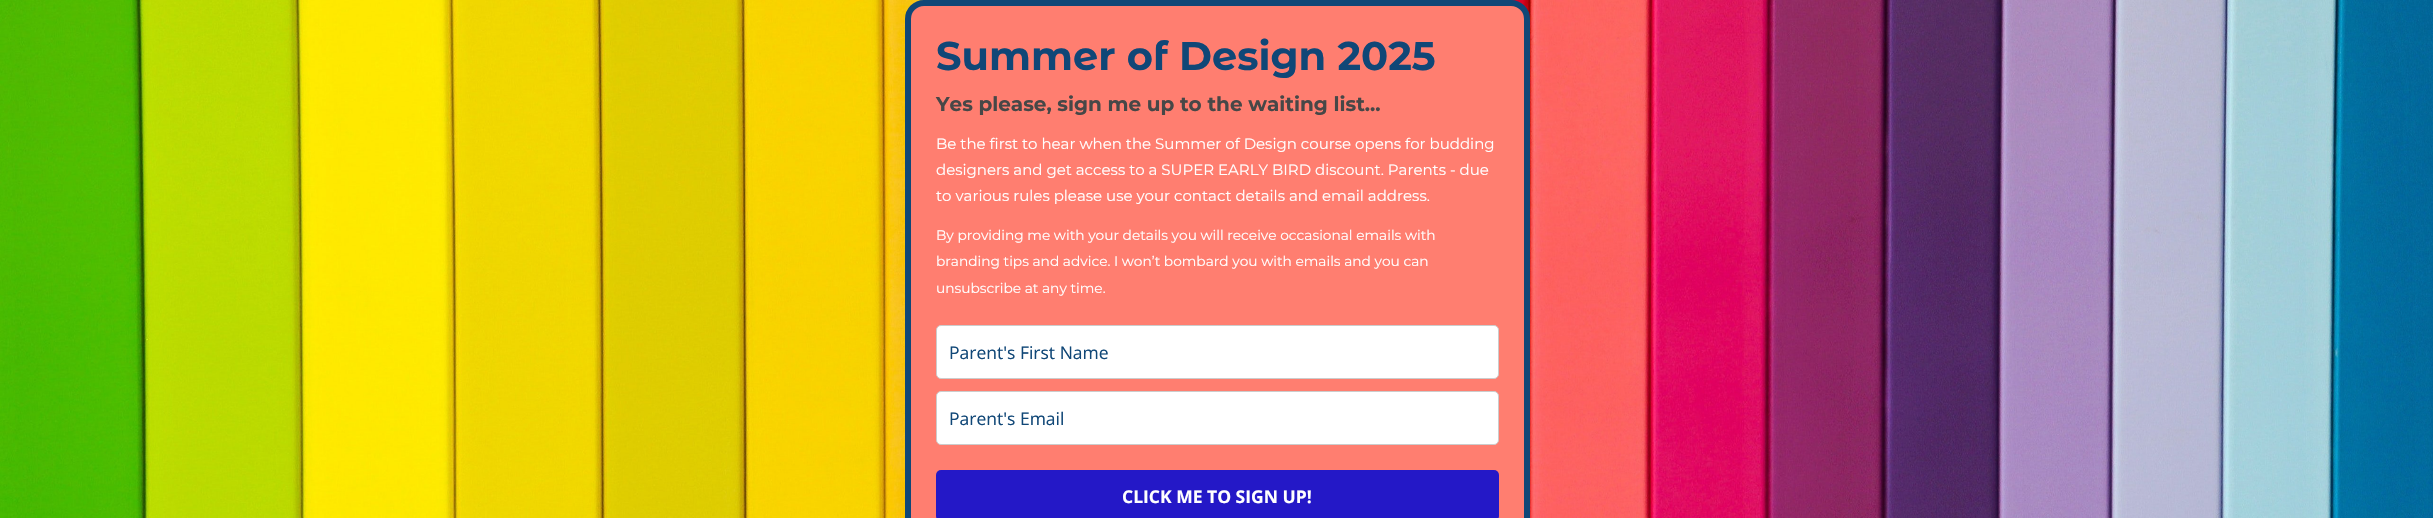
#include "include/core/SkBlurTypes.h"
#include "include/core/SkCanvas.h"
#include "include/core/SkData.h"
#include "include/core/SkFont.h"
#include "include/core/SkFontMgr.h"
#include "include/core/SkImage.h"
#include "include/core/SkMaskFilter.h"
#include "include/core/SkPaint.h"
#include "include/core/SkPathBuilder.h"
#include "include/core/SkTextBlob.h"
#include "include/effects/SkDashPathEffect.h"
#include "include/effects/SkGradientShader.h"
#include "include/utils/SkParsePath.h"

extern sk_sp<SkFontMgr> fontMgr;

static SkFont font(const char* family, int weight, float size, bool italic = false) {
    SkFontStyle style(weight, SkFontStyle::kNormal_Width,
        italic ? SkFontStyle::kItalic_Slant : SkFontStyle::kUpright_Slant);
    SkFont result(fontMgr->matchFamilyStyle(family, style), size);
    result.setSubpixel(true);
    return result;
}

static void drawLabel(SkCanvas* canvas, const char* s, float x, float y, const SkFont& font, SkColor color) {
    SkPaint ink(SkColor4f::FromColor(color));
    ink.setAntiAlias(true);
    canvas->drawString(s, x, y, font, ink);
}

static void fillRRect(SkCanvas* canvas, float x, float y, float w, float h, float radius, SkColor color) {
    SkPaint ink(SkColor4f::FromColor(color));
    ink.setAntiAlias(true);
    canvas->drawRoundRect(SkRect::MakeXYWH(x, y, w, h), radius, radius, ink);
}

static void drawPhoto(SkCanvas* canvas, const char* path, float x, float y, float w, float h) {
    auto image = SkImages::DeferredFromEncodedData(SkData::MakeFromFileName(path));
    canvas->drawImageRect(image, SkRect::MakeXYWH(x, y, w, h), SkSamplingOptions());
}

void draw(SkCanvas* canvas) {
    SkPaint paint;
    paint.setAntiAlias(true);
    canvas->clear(0xFFFFFFFF);
    drawPhoto(canvas, "assets/img1.png", 0, 0, 2433, 518);
    paint.setColor(0xFFFF7E70);
    canvas->drawRoundRect(SkRect::MakeXYWH(908, 3, 619, 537), 16, 16, paint);
    paint.setStroke(true);
    paint.setStrokeWidth(6);
    paint.setColor(0xFF104777);
    canvas->drawRoundRect(SkRect::MakeXYWH(908, 3, 619, 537), 16, 16, paint);
    SkFont font1 = font("Montserrat Alternates", 700, 40);
    drawLabel(canvas, "Summer of Design 2025", 936, 70, font1, 0xFF104777);
    SkFont font2 = font("Montserrat", 700, 20);
    drawLabel(canvas, "Yes please, sign me up to the waiting list...", 936, 111, font2, 0xFF474747);
    SkFont font3 = font("Montserrat", 400, 15);
    drawLabel(canvas, "Be the first to hear when the Summer of Design course opens for budding", 936, 149, font3, 0xFFFFFFFF);
    drawLabel(canvas, "designers and get access to a SUPER EARLY BIRD discount. Parents - due", 936, 175, font3, 0xFFFFFFFF);
    drawLabel(canvas, "to various rules please use your contact details and email address.", 936, 201, font3, 0xFFFFFFFF);
    SkFont font4 = font("Montserrat", 400, 13.75f);
    drawLabel(canvas, "By providing me with your details you will receive occasional emails with", 936, 240, font4, 0xFFFFFFFF);
    drawLabel(canvas, "branding tips and advice. I won’t bombard you with emails and you can", 936, 266, font4, 0xFFFFFFFF);
    drawLabel(canvas, "unsubscribe at any time.", 936, 293, font4, 0xFFFFFFFF);
    paint.setStroke(false);
    paint.setColor(0xFFFFFFFF);
    canvas->drawRoundRect(SkRect::MakeXYWH(936.5f, 325.5f, 562, 53), 4.5f, 4.5f, paint);
    paint.setStroke(true);
    paint.setStrokeWidth(1);
    paint.setColor(0xFFCCCCCC);
    canvas->drawRoundRect(SkRect::MakeXYWH(936.5f, 325.5f, 562, 53), 4.5f, 4.5f, paint);
    SkFont font5 = font("Open Sans", 400, 17.5f);
    drawLabel(canvas, "Parent's First Name", 949, 359, font5, 0xFF104777);
    paint.setStroke(false);
    paint.setColor(0xFFFFFFFF);
    canvas->drawRoundRect(SkRect::MakeXYWH(936.5f, 391.5f, 562, 53), 4.5f, 4.5f, paint);
    paint.setStroke(true);
    paint.setColor(0xFFCCCCCC);
    canvas->drawRoundRect(SkRect::MakeXYWH(936.5f, 391.5f, 562, 53), 4.5f, 4.5f, paint);
    drawLabel(canvas, "Parent's Email", 949, 425, font5, 0xFF104777);
    fillRRect(canvas, 936, 470, 563, 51, 5, 0xFF2418C7);
    SkFont font6 = font("Open Sans", 700, 17.5f);
    drawLabel(canvas, "CLICK ME TO SIGN UP!", 1122, 503, font6, 0xFFFFFFFF);
}
